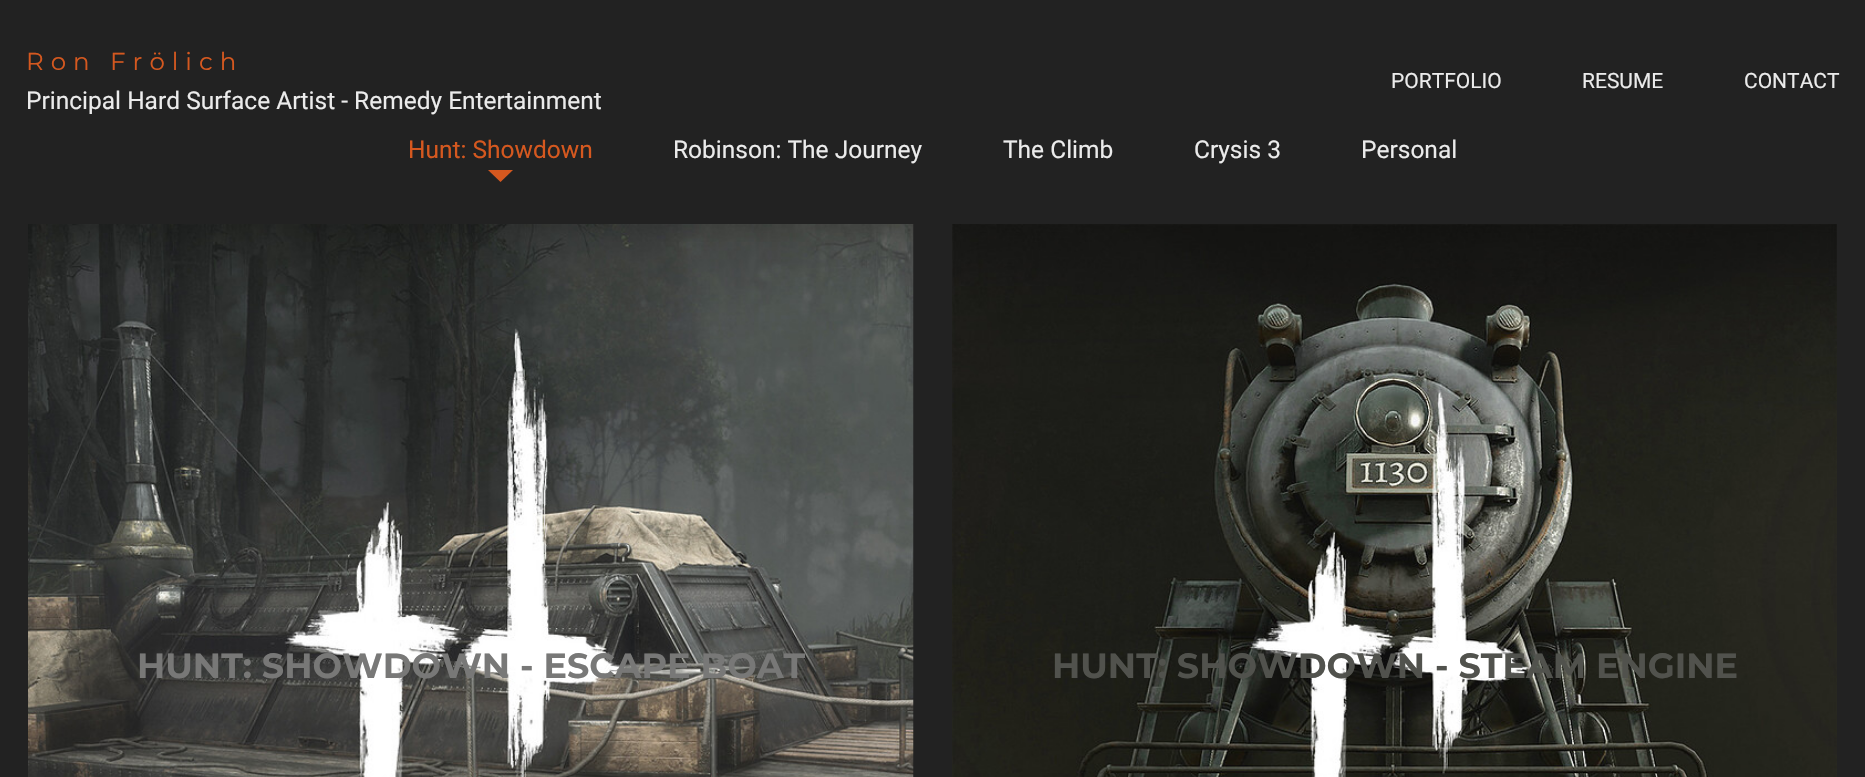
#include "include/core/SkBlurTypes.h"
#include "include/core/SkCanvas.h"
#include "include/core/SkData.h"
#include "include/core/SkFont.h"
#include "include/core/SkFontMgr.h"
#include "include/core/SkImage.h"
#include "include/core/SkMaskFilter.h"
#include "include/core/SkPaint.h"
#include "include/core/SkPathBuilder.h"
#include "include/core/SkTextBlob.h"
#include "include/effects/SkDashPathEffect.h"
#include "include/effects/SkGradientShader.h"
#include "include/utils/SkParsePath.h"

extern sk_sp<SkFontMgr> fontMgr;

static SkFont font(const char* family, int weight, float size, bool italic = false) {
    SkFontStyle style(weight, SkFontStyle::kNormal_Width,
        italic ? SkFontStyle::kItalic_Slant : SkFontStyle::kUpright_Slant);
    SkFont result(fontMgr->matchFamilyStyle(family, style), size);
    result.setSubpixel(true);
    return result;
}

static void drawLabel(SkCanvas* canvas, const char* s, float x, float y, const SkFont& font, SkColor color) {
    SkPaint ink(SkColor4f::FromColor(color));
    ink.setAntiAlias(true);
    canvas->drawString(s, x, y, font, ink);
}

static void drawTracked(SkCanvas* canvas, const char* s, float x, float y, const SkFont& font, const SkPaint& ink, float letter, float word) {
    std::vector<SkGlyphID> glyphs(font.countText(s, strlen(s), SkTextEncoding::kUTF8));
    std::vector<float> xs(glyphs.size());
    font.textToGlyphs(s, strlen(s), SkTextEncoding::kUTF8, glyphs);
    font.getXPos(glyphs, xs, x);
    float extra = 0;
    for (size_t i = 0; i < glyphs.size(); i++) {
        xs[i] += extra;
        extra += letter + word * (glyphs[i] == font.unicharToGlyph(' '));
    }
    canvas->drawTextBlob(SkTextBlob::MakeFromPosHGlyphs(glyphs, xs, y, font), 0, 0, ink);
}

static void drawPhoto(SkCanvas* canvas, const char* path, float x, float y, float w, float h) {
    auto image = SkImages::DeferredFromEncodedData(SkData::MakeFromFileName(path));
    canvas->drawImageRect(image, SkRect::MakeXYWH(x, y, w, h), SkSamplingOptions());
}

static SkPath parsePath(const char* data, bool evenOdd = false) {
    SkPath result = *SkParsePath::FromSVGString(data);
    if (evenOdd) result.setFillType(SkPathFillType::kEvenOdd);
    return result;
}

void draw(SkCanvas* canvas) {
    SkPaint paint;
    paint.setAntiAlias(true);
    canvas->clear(0xFF222222);
    SkFont font1 = font("Montserrat", 400, 24.5f);
    paint.setColor(0xFFD5581F);
    drawTracked(canvas, "Ron Frölich", 26, 70, font1, paint, 7, 0);
    SkFont font2 = font("Roboto", 400, 24.5f);
    drawLabel(canvas, "Principal Hard Surface Artist - Remedy Entertainment", 26, 109, font2, 0xFFEBEBEB);
    SkFont font3 = font("Roboto", 400, 21);
    drawLabel(canvas, "PORTFOLIO", 1391, 88, font3, 0xFFEBEBEB);
    drawLabel(canvas, "RESUME", 1582, 88, font3, 0xFFEBEBEB);
    drawLabel(canvas, "CONTACT", 1744, 88, font3, 0xFFEBEBEB);
    drawLabel(canvas, "Hunt: Showdown", 408, 158, font2, 0xFFD5581F);
    canvas->drawPath(parsePath("M488 170H513L500.5 182Z"), paint);
    drawLabel(canvas, "Robinson: The Journey", 673, 158, font2, 0xFFEBEBEB);
    drawLabel(canvas, "The Climb", 1003, 158, font2, 0xFFEBEBEB);
    drawLabel(canvas, "Crysis 3", 1194, 158, font2, 0xFFEBEBEB);
    drawLabel(canvas, "Personal", 1361, 158, font2, 0xFFEBEBEB);
    drawPhoto(canvas, "assets/img1.png", 28, 224, 886, 553);
    SkFont font4 = font("Montserrat", 700, 35);
    drawLabel(canvas, "HUNT: SHOWDOWN - ESCAPE BOAT", 137, 678, font4, 0xFF787877);
    drawPhoto(canvas, "assets/img2.png", 952, 224, 885, 553);
    drawLabel(canvas, "HUNT: SHOWDOWN - STEAM ENGINE", 1052, 678, font4, 0xFF51524D);
}
